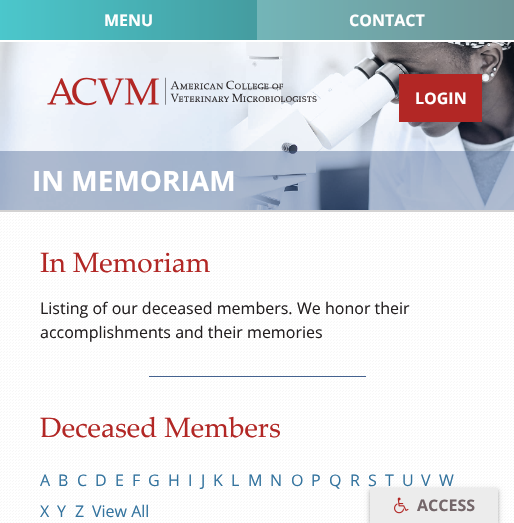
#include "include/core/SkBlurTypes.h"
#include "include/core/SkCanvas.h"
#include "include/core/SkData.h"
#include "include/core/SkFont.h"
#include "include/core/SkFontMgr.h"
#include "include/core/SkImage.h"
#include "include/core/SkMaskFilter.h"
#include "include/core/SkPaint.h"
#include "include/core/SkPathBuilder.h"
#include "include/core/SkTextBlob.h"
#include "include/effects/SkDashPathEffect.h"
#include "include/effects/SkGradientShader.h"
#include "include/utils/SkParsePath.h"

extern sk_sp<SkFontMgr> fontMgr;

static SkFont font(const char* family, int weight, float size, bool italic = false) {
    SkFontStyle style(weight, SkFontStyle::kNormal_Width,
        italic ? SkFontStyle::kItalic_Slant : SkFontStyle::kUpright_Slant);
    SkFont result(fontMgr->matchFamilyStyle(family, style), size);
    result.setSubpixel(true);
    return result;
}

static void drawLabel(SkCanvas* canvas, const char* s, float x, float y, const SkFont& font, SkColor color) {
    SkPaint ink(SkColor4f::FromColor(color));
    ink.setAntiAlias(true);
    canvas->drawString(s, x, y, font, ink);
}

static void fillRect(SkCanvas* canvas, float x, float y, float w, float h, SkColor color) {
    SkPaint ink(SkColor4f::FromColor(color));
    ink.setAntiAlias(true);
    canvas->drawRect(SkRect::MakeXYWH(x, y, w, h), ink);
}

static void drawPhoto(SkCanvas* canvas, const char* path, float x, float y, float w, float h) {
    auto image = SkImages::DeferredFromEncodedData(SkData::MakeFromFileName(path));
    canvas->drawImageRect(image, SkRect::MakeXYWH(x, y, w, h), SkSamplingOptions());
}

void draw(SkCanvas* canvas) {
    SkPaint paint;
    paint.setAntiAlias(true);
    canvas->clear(0xFFFFFFFF);
    drawPhoto(canvas, "assets/img1.png", 0, 213, 514, 310);
    {
        const SkColor colors[] = {0xFF1EB9BF, 0xFF0D4E51};
        const float stops[] = {0, 1};
        const SkPoint ends[] = {{0, 20}, {514, 20}};
        paint.setShader(SkGradientShader::MakeLinear(ends, colors, stops, 2, SkTileMode::kClamp));
        paint.setAlpha(255);
    }
    canvas->drawRect(SkRect::MakeXYWH(0, 0, 514, 40), paint);
    fillRect(canvas, 0, 0, 257, 40, 0x33FFFFFF);
    SkFont font1 = font("Open Sans", 700, 16);
    drawLabel(canvas, "MENU", 104, 26, font1, 0xFFFFFFFF);
    fillRect(canvas, 257, 0, 257, 40, 0x66FFFFFF);
    drawLabel(canvas, "CONTACT", 349, 26, font1, 0xFFFFFFFF);
    drawPhoto(canvas, "assets/img2.png", 0, 42, 514, 168);
    fillRect(canvas, 0, 210, 514, 2, 0xFFD3D2D2);
    drawPhoto(canvas, "assets/img3.png", 47, 77, 270, 29);
    fillRect(canvas, 399, 74, 83, 48, 0xFFB22725);
    drawLabel(canvas, "LOGIN", 415, 104, font1, 0xFFFFFFFF);
    fillRect(canvas, 0, 151, 514, 59, 0x6645628F);
    SkFont font2 = font("Open Sans", 700, 28);
    drawLabel(canvas, "IN MEMORIAM", 32, 191, font2, 0xFFFFFFFF);
    SkFont font3 = font("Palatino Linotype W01", 400, 28);
    drawLabel(canvas, "In Memoriam", 40, 272, font3, 0xFFB22725);
    SkFont font4 = font("Open Sans", 400, 16);
    drawLabel(canvas, "Listing of our deceased members.", 40, 314, font4, 0xFF231F20);
    drawLabel(canvas, "We honor their", 297, 314, font4, 0xFF231F20);
    drawLabel(canvas, "accomplishments and their memories", 40, 338, font4, 0xFF231F20);
    fillRect(canvas, 149, 376, 217, 1, 0xFF45628F);
    drawLabel(canvas, "Deceased Members", 40, 437, font3, 0xFFB22725);
    drawLabel(canvas, "A", 40, 486, font4, 0xFF33739E);
    drawLabel(canvas, "B", 58, 486, font4, 0xFF33739E);
    drawLabel(canvas, "C", 77, 486, font4, 0xFF33739E);
    drawLabel(canvas, "D", 95, 486, font4, 0xFF33739E);
    drawLabel(canvas, "E", 115, 486, font4, 0xFF33739E);
    drawLabel(canvas, "F", 132, 486, font4, 0xFF33739E);
    drawLabel(canvas, "G", 148, 486, font4, 0xFF33739E);
    drawLabel(canvas, "H", 168, 486, font4, 0xFF33739E);
    drawLabel(canvas, "I", 188, 486, font4, 0xFF33739E);
    drawLabel(canvas, "J", 201, 486, font4, 0xFF33739E);
    drawLabel(canvas, "K", 213, 486, font4, 0xFF33739E);
    drawLabel(canvas, "L", 231, 486, font4, 0xFF33739E);
    drawLabel(canvas, "M", 248, 486, font4, 0xFF33739E);
    drawLabel(canvas, "N", 270, 486, font4, 0xFF33739E);
    drawLabel(canvas, "O", 291, 486, font4, 0xFF33739E);
    drawLabel(canvas, "P", 311, 486, font4, 0xFF33739E);
    drawLabel(canvas, "Q", 329, 486, font4, 0xFF33739E);
    drawLabel(canvas, "R", 350, 486, font4, 0xFF33739E);
    drawLabel(canvas, "S", 368, 486, font4, 0xFF33739E);
    drawLabel(canvas, "T", 385, 486, font4, 0xFF33739E);
    drawLabel(canvas, "U", 402, 486, font4, 0xFF33739E);
    drawLabel(canvas, "V", 421, 486, font4, 0xFF33739E);
    drawLabel(canvas, "W", 439, 486, font4, 0xFF33739E);
    drawLabel(canvas, "X", 40, 517, font4, 0xFF33739E);
    drawLabel(canvas, "Y", 57, 517, font4, 0xFF33739E);
    drawLabel(canvas, "Z", 75, 517, font4, 0xFF33739E);
    drawLabel(canvas, "View All", 92, 517, font4, 0xFF33739E);
    paint.setShader(nullptr);
    paint.setColor(0x1F000000);
    paint.setMaskFilter(SkMaskFilter::MakeBlur(kNormal_SkBlurStyle, 3));
    canvas->drawRect(SkRect::MakeXYWH(370, 490, 128, 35), paint);
    paint.setMaskFilter(nullptr);
    paint.setColor(0x3D000000);
    paint.setMaskFilter(SkMaskFilter::MakeBlur(kNormal_SkBlurStyle, 2));
    canvas->drawRect(SkRect::MakeXYWH(370, 490, 128, 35), paint);
    paint.setMaskFilter(nullptr);
    fillRect(canvas, 370, 488, 128, 35, 0xFFECECEC);
    drawPhoto(canvas, "assets/img4.png", 394, 497, 15, 17);
    drawLabel(canvas, "ACCESS", 417, 511, font1, 0xFF74676A);
}
